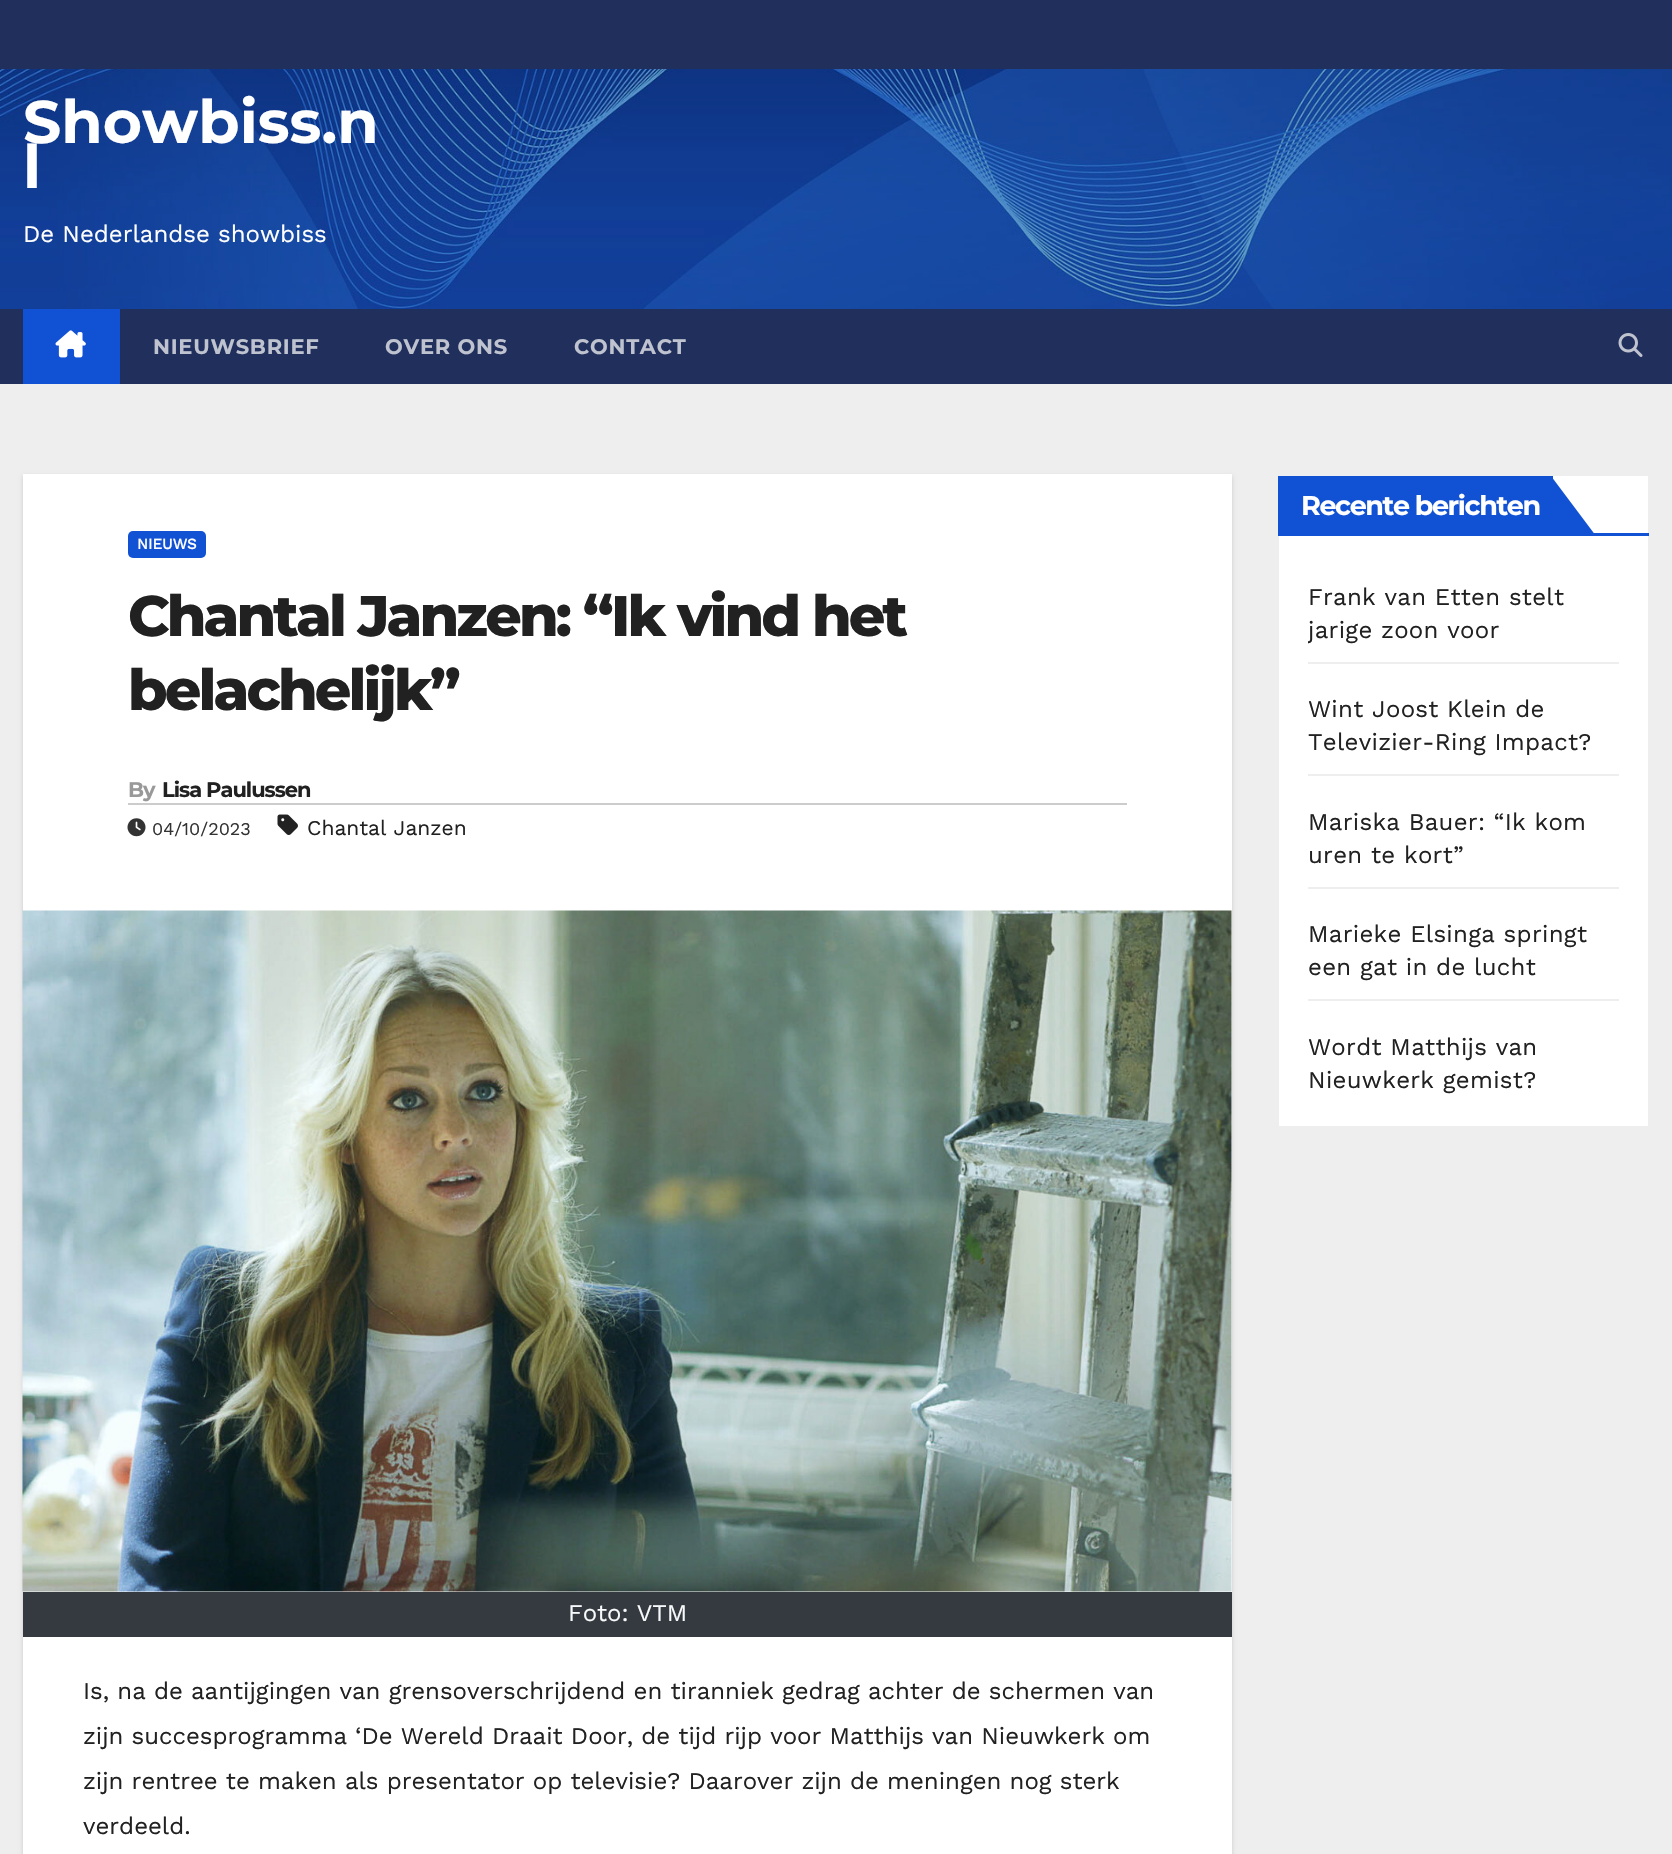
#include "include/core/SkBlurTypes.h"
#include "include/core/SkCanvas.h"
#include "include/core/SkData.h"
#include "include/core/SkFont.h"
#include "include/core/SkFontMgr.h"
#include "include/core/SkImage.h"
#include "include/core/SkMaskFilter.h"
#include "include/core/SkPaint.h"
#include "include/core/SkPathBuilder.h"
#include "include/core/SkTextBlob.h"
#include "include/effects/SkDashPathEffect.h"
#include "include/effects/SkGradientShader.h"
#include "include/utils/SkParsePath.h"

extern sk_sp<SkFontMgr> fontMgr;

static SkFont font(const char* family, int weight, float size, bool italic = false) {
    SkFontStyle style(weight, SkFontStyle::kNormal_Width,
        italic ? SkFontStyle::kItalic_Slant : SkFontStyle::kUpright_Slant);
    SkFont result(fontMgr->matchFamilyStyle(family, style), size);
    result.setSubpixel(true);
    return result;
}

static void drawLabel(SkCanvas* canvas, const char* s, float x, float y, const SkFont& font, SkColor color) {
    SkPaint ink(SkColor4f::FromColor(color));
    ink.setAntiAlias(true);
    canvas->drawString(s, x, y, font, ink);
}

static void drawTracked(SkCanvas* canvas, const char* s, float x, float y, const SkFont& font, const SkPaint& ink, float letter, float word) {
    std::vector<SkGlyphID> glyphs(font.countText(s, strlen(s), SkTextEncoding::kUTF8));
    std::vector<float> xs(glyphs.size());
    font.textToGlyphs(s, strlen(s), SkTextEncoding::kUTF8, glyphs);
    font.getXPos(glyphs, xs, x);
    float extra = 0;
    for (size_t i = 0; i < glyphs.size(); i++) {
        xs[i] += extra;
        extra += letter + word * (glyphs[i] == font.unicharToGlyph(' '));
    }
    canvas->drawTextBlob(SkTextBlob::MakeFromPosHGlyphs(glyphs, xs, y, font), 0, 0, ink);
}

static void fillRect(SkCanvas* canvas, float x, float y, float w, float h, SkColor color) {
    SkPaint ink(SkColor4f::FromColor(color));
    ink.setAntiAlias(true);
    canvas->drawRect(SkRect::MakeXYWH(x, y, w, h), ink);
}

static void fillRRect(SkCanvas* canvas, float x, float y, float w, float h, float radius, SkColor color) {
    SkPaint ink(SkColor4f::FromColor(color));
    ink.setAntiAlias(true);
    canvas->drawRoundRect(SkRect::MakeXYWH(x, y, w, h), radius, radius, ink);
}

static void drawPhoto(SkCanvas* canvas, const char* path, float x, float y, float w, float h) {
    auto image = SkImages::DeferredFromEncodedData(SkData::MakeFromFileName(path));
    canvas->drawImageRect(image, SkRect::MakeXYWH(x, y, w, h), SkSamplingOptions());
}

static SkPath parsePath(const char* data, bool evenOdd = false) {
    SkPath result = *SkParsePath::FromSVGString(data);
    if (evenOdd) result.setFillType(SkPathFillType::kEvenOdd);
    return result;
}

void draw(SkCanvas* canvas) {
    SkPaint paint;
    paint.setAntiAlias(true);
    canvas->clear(0xFFEEEEEE);
    fillRect(canvas, 0, 0, 1672, 69, 0xFF202F5B);
    drawPhoto(canvas, "assets/img1.png", 0, 69, 1672, 240);
    SkFont font1 = font("Montserrat", 700, 60);
    drawLabel(canvas, "Showbiss.n", 23, 143, font1, 0xFFFFFFFF);
    drawLabel(canvas, "l", 23, 188, font1, 0xFFFFFFFF);
    SkFont font2 = font("Work Sans", 400, 24);
    drawLabel(canvas, "De Nederlandse showbiss", 23, 242, font2, 0xFFFFFFFF);
    fillRect(canvas, 0, 309, 1672, 75, 0xFF202F5B);
    fillRect(canvas, 23, 309, 97, 75, 0xFF1151D3);
    drawPhoto(canvas, "assets/img2.png", 55, 330, 31, 28);
    SkFont font3 = font("Montserrat", 700, 21);
    paint.setColor(0xFFBEC3CF);
    drawTracked(canvas, "NIEUWSBRIEF", 153, 354, font3, paint, 0.75f, 0);
    drawTracked(canvas, "OVER ONS", 385, 354, font3, paint, 0.75f, 0);
    drawTracked(canvas, "CONTACT", 574, 354, font3, paint, 0.75f, 0);
    drawPhoto(canvas, "assets/img3.png", 1618, 333, 25, 24);
    paint.setColor(0x26000000);
    paint.setMaskFilter(SkMaskFilter::MakeBlur(kNormal_SkBlurStyle, 2));
    canvas->drawRect(SkRect::MakeXYWH(23, 476, 1209, 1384), paint);
    paint.setMaskFilter(nullptr);
    fillRect(canvas, 23, 474, 1209, 1380, 0xFFFFFFFF);
    fillRRect(canvas, 128, 531, 78, 27, 5, 0xFF1151D3);
    SkFont font4 = font("Work Sans", 700, 15);
    drawLabel(canvas, "NIEUWS", 137, 549, font4, 0xFFFFFFFF);
    SkFont font5 = font("Montserrat", 800, 57);
    paint.setColor(0xFF212121);
    drawTracked(canvas, "Chantal Janzen: “Ik vind het", 128, 636, font5, paint, -2.85f, 0);
    drawTracked(canvas, "belachelijk”", 128, 710, font5, paint, -2.85f, 0);
    fillRect(canvas, 128, 803, 999, 2, 0xFFCCCCCC);
    paint.setColor(0xFF999999);
    drawTracked(canvas, "By", 128, 797, font3, paint, -1, 0);
    paint.setColor(0xFF212121);
    drawTracked(canvas, "Lisa Paulussen", 162, 797, font3, paint, -1, 0);
    drawPhoto(canvas, "assets/img4.png", 127, 818, 19, 19);
    SkFont font6 = font("Work Sans", 400, 18);
    drawLabel(canvas, "04/10/2023", 152, 835, font6, 0xFF333333);
    drawPhoto(canvas, "assets/img5.png", 277, 814, 21, 21);
    SkFont font7 = font("Work Sans", 400, 21);
    drawLabel(canvas, "Chantal Janzen", 307, 835, font7, 0xFF212121);
    drawPhoto(canvas, "assets/img6.png", 22, 910, 1210, 682);
    fillRect(canvas, 23, 1592, 1209, 45, 0xFF343A40);
    drawLabel(canvas, "Foto: VTM", 568, 1621, font2, 0xFFF8F9FA);
    drawLabel(canvas, "Is, na de aantijgingen van grensoverschrijdend en tiranniek gedrag achter de schermen van", 83, 1699, font2, 0xFF212121);
    drawLabel(canvas, "zijn succesprogramma ‘De Wereld Draait Door, de tijd rijp voor Matthijs van Nieuwkerk om", 83, 1744, font2, 0xFF212121);
    drawLabel(canvas, "zijn rentree te maken als presentator op televisie? Daarover zijn de meningen nog sterk", 83, 1789, font2, 0xFF212121);
    drawLabel(canvas, "verdeeld.", 83, 1834, font2, 0xFF212121);
    fillRect(canvas, 1279, 476, 369, 650, 0xFFFFFFFF);
    fillRect(canvas, 1278, 476, 275, 57, 0xFF1151D3);
    SkFont font8 = font("Montserrat", 700, 27);
    paint.setColor(0xFFFFFFFF);
    drawTracked(canvas, "Recente berichten", 1301, 515, font8, paint, -1.4f, 0);
    paint.setColor(0xFF1151D3);
    canvas->drawPath(parsePath("M1551 536V476L1596 536Z"), paint);
    fillRect(canvas, 1278, 533, 371, 3, 0xFF1151D3);
    fillRect(canvas, 1308, 662, 311, 2, 0xFFEEEEEE);
    paint.setColor(0xFF212121);
    drawTracked(canvas, "Frank van Etten stelt", 1308, 605, font2, paint, 0.3f, 0);
    canvas->save();
    canvas->clipRect(SkRect::MakeXYWH(1308, 566, 311, 96));
    drawTracked(canvas, "jarige zoon voor", 1308, 638, font2, paint, 0.3f, 0);
    canvas->restore();
    fillRect(canvas, 1308, 774, 311, 2, 0xFFEEEEEE);
    drawTracked(canvas, "Wint Joost Klein de", 1308, 717, font2, paint, 0.3f, 0);
    drawTracked(canvas, "Televizier-Ring Impact?", 1308, 750, font2, paint, 0.3f, 0);
    fillRect(canvas, 1308, 887, 311, 2, 0xFFEEEEEE);
    drawTracked(canvas, "Mariska Bauer: “Ik kom", 1308, 830, font2, paint, 0.3f, 0);
    drawTracked(canvas, "uren te kort”", 1308, 863, font2, paint, 0.3f, 0);
    fillRect(canvas, 1308, 999, 311, 2, 0xFFEEEEEE);
    drawTracked(canvas, "Marieke Elsinga springt", 1308, 942, font2, paint, 0.3f, 0);
    drawTracked(canvas, "een gat in de lucht", 1308, 975, font2, paint, 0.3f, 0);
    drawTracked(canvas, "Wordt Matthijs van", 1308, 1055, font2, paint, 0.3f, 0);
    drawTracked(canvas, "Nieuwkerk gemist?", 1308, 1088, font2, paint, 0.3f, 0);
}
